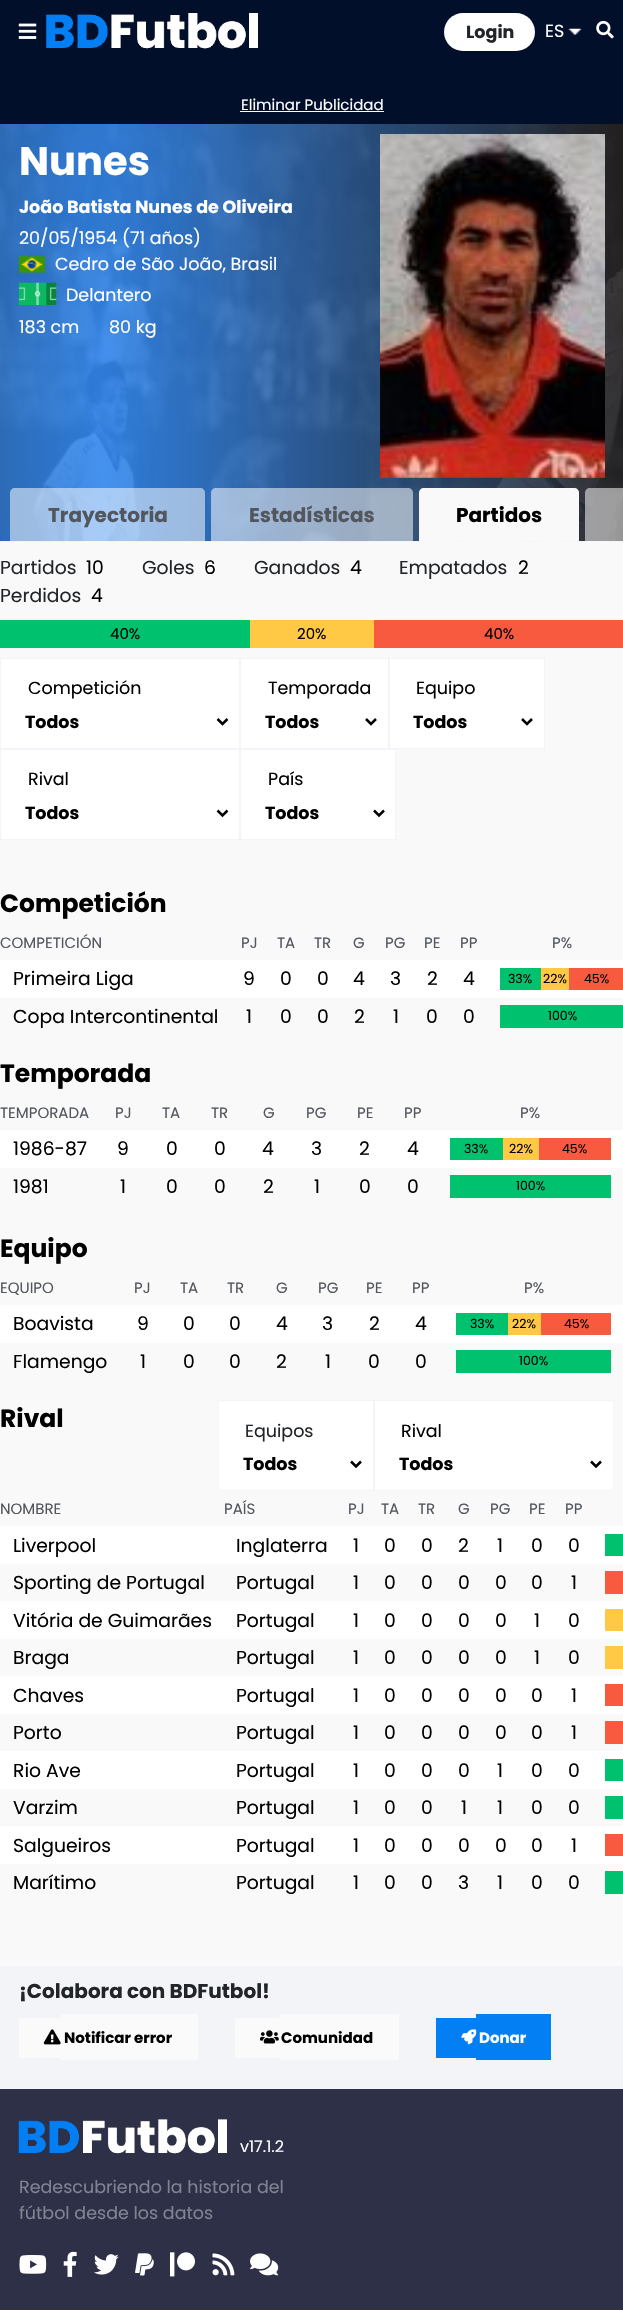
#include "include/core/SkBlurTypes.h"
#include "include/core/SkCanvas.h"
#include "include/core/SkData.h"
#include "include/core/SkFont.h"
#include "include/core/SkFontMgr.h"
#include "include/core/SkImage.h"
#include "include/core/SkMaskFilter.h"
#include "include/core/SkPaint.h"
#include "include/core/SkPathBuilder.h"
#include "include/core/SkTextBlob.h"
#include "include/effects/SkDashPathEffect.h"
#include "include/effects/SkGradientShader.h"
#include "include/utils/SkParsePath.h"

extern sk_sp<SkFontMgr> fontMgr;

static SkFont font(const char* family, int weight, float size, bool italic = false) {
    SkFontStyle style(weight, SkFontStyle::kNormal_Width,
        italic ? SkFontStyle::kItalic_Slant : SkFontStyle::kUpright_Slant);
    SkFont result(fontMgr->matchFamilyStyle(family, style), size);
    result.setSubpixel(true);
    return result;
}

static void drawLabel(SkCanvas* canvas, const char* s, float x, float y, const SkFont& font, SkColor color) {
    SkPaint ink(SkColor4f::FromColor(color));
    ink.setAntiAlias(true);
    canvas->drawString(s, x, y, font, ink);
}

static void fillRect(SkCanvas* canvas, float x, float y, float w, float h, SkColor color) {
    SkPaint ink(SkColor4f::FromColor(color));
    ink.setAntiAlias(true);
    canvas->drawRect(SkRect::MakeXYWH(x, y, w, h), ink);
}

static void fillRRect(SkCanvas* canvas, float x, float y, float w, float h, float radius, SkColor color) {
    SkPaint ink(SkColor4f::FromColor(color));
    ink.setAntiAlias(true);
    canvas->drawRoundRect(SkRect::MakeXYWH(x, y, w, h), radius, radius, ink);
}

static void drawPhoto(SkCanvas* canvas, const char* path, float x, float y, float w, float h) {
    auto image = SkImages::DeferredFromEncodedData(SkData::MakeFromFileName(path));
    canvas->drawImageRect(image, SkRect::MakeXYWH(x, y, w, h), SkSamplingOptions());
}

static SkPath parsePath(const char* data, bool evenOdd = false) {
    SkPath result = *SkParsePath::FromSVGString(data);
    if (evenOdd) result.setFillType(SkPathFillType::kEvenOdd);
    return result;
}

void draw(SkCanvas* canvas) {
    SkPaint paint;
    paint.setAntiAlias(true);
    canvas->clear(0xFFF9F9F9);
    fillRect(canvas, 0, 0, 623, 124, 0xFF020F2A);
    drawPhoto(canvas, "assets/img1.png", 18, 23, 19, 16);
    drawPhoto(canvas, "assets/img2.png", 46, 13, 212, 36);
    fillRRect(canvas, 444, 13, 91, 38, 19, 0xFFFFFFFF);
    SkFont font1 = font("Poppins", 700, 17.5f);
    drawLabel(canvas, "Login", 466, 38, font1, 0xFF212529);
    SkFont font2 = font("Poppins", 400, 17.5f);
    drawLabel(canvas, "ES", 545, 37, font2, 0xFFFFFFFF);
    drawPhoto(canvas, "assets/img3.png", 568, 28, 14, 7);
    drawPhoto(canvas, "assets/img4.png", 596, 20, 18, 19);
    SkFont font3 = font("Poppins", 400, 15);
    drawLabel(canvas, "Eliminar Publicidad", 241, 110, font3, 0xFFFFFFFF);
    fillRect(canvas, 240, 111, 144, 1, 0xFFFFFFFF);
    {
        const SkColor colors[] = {0xFF0052B4, 0xFF338AF3, 0xFF221F1F};
        const float stops[] = {0, 0, 1};
        SkMatrix m = SkMatrix::Translate(103, 541).preScale(521, 5638);
        paint.setShader(SkGradientShader::MakeRadial({0, 0}, 1, colors, stops, 3, SkTileMode::kClamp, 0, &m));
        paint.setAlpha(255);
    }
    canvas->drawRect(SkRect::MakeXYWH(0, 124, 623, 417), paint);
    drawPhoto(canvas, "assets/img5.png", 0, 124, 623, 418);
    SkFont font4 = font("Poppins", 700, 40);
    drawLabel(canvas, "Nunes", 19, 175, font4, 0xFFFFFFFF);
    drawLabel(canvas, "João Batista Nunes de Oliveira", 19, 213, font1, 0xFFFFFFFF);
    drawLabel(canvas, "20/05/1954 (71 años)", 19, 244, font2, 0xFFFFFFFF);
    drawPhoto(canvas, "assets/img6.png", 18, 256, 27, 17);
    drawLabel(canvas, "Cedro de São João, Brasil", 55, 270, font2, 0xFFFFFFFF);
    drawPhoto(canvas, "assets/img7.png", 18, 282, 39, 23);
    drawLabel(canvas, "Delantero", 66, 301, font2, 0xFFFFFFFF);
    drawLabel(canvas, "183 cm", 19, 333, font2, 0xFFFFFFFF);
    drawLabel(canvas, "80 kg", 109, 333, font2, 0xFFFFFFFF);
    drawPhoto(canvas, "assets/img8.png", 380, 134, 225, 344);
    paint.setShader(nullptr);
    paint.setColor(0x87FFFFFF);
    canvas->drawPath(parsePath("M15 488H200C203 488 205 490 205 493V541H10V493C10 490 12 488 15 488Z"), paint);
    SkFont font5 = font("Poppins", 700, 20);
    drawLabel(canvas, "Trayectoria", 48, 522, font5, 0xFF52565E);
    canvas->drawPath(parsePath("M216 488H408C411 488 413 490 413 493V541H211V493C211 490 213 488 216 488Z"), paint);
    drawLabel(canvas, "Estadísticas", 249, 522, font5, 0xFF52565E);
    paint.setColor(0xFFF9F9F9);
    canvas->drawPath(parsePath("M424 488H574C577 488 579 490 579 493V541H419V493C419 490 421 488 424 488Z"), paint);
    drawLabel(canvas, "Partidos", 456, 522, font5, 0xFF000000);
    paint.setColor(0x87FFFFFF);
    canvas->drawPath(parsePath("M590 488H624V541H585V493C585 490 587 488 590 488Z"), paint);
    SkFont font6 = font("Poppins", 400, 18.75f);
    drawLabel(canvas, "Partidos", 0, 574, font6, 0xFF212529);
    drawLabel(canvas, "10", 86, 574, font6, 0xFF000000);
    drawLabel(canvas, "Goles", 142, 574, font6, 0xFF212529);
    drawLabel(canvas, "6", 204, 574, font6, 0xFF000000);
    drawLabel(canvas, "Ganados", 254, 574, font6, 0xFF212529);
    drawLabel(canvas, "4", 350, 574, font6, 0xFF000000);
    drawLabel(canvas, "Empatados", 399, 574, font6, 0xFF212529);
    drawLabel(canvas, "2", 518, 574, font6, 0xFF000000);
    drawLabel(canvas, "Perdidos", 0, 602, font6, 0xFF212529);
    drawLabel(canvas, "4", 91, 602, font6, 0xFF000000);
    fillRect(canvas, 0, 620, 250, 28, 0xFF00C16E);
    drawLabel(canvas, "40%", 110, 639, font3, 0xFF000000);
    fillRect(canvas, 250, 620, 124, 28, 0xFFFFC845);
    drawLabel(canvas, "20%", 297, 639, font3, 0xFF000000);
    fillRect(canvas, 374, 620, 249, 28, 0xFFF85A40);
    drawLabel(canvas, "40%", 484, 639, font3, 0xFF000000);
    paint.setColor(0xFFFFFFFF);
    canvas->drawRect(SkRect::MakeXYWH(0.5f, 658.5f, 239, 90), paint);
    paint.setStroke(true);
    paint.setStrokeWidth(1);
    paint.setColor(0xFFF3F4F7);
    canvas->drawRect(SkRect::MakeXYWH(0.5f, 658.5f, 239, 90), paint);
    drawLabel(canvas, "Competición", 28, 694, font2, 0xFF000000);
    paint.setStrokeWidth(2.5f);
    paint.setColor(0xFF000000);
    canvas->drawPath(parsePath("M217.5 719L222.5 724L227.5 719"), paint);
    drawLabel(canvas, "Todos", 25, 728, font1, 0xFF000000);
    paint.setStroke(false);
    paint.setColor(0xFFFFFFFF);
    canvas->drawRect(SkRect::MakeXYWH(240.5f, 658.5f, 148, 90), paint);
    paint.setStroke(true);
    paint.setStrokeWidth(1);
    paint.setColor(0xFFF3F4F7);
    canvas->drawRect(SkRect::MakeXYWH(240.5f, 658.5f, 148, 90), paint);
    drawLabel(canvas, "Temporada", 268, 694, font2, 0xFF000000);
    paint.setStrokeWidth(2.5f);
    paint.setColor(0xFF000000);
    canvas->drawPath(parsePath("M366 719L371 724L376 719"), paint);
    drawLabel(canvas, "Todos", 265, 728, font1, 0xFF000000);
    paint.setStroke(false);
    paint.setColor(0xFFFFFFFF);
    canvas->drawRect(SkRect::MakeXYWH(389.5f, 658.5f, 155, 90), paint);
    paint.setStroke(true);
    paint.setStrokeWidth(1);
    paint.setColor(0xFFF3F4F7);
    canvas->drawRect(SkRect::MakeXYWH(389.5f, 658.5f, 155, 90), paint);
    drawLabel(canvas, "Equipo", 416, 694, font2, 0xFF000000);
    paint.setStrokeWidth(2.5f);
    paint.setColor(0xFF000000);
    canvas->drawPath(parsePath("M522 719L527 724L532 719"), paint);
    drawLabel(canvas, "Todos", 413, 728, font1, 0xFF000000);
    paint.setStroke(false);
    paint.setColor(0xFFFFFFFF);
    canvas->drawRect(SkRect::MakeXYWH(0.5f, 749.5f, 239, 90), paint);
    paint.setStroke(true);
    paint.setStrokeWidth(1);
    paint.setColor(0xFFF3F4F7);
    canvas->drawRect(SkRect::MakeXYWH(0.5f, 749.5f, 239, 90), paint);
    drawLabel(canvas, "Rival", 28, 785, font2, 0xFF000000);
    paint.setStrokeWidth(2.5f);
    paint.setColor(0xFF000000);
    canvas->drawPath(parsePath("M217.5 810.5L222.5 815.5L227.5 810.5"), paint);
    drawLabel(canvas, "Todos", 25, 819, font1, 0xFF000000);
    paint.setStroke(false);
    paint.setColor(0xFFFFFFFF);
    canvas->drawRect(SkRect::MakeXYWH(240.5f, 749.5f, 155, 90), paint);
    paint.setStroke(true);
    paint.setStrokeWidth(1);
    paint.setColor(0xFFF3F4F7);
    canvas->drawRect(SkRect::MakeXYWH(240.5f, 749.5f, 155, 90), paint);
    drawLabel(canvas, "País", 268, 785, font2, 0xFF000000);
    paint.setStrokeWidth(2.5f);
    paint.setColor(0xFF000000);
    canvas->drawPath(parsePath("M374 810.5L379 815.5L384 810.5"), paint);
    drawLabel(canvas, "Todos", 265, 819, font1, 0xFF000000);
    SkFont font7 = font("Poppins", 700, 25);
    drawLabel(canvas, "Competición", 0, 912, font7, 0xFF000000);
    drawLabel(canvas, "COMPETICIÓN", 0, 948, font3, 0xFF52565E);
    drawLabel(canvas, "PJ", 241, 948, font3, 0xFF52565E);
    drawLabel(canvas, "TA", 277, 948, font3, 0xFF52565E);
    drawLabel(canvas, "TR", 314, 948, font3, 0xFF52565E);
    drawLabel(canvas, "G", 353, 948, font3, 0xFF52565E);
    drawLabel(canvas, "PG", 385, 948, font3, 0xFF52565E);
    drawLabel(canvas, "PE", 424, 948, font3, 0xFF52565E);
    drawLabel(canvas, "PP", 460, 948, font3, 0xFF52565E);
    drawLabel(canvas, "P%", 552, 948, font3, 0xFF52565E);
    fillRect(canvas, 0, 960, 623, 38, 0xFFFFFFFF);
    drawLabel(canvas, "Primeira Liga", 13, 985, font6, 0xFF000000);
    drawLabel(canvas, "9", 243, 985, font6, 0xFF000000);
    drawLabel(canvas, "0", 280, 985, font6, 0xFF000000);
    drawLabel(canvas, "0", 317, 985, font6, 0xFF000000);
    drawLabel(canvas, "4", 353, 985, font6, 0xFF000000);
    drawLabel(canvas, "3", 390, 985, font6, 0xFF000000);
    drawLabel(canvas, "2", 427, 985, font6, 0xFF000000);
    drawLabel(canvas, "4", 463, 985, font6, 0xFF000000);
    fillRect(canvas, 500, 968, 41, 22, 0xFF00C16E);
    SkFont font8 = font("Poppins", 400, 12.5f);
    drawLabel(canvas, "33%", 508, 983, font8, 0xFF000000);
    fillRect(canvas, 541, 968, 28, 22, 0xFFFFC845);
    drawLabel(canvas, "22%", 543, 983, font8, 0xFF000000);
    fillRect(canvas, 569, 968, 54, 22, 0xFFF85A40);
    drawLabel(canvas, "45%", 584, 983, font8, 0xFF000000);
    drawLabel(canvas, "Copa Intercontinental", 13, 1023, font6, 0xFF000000);
    drawLabel(canvas, "1", 246, 1023, font6, 0xFF000000);
    drawLabel(canvas, "0", 280, 1023, font6, 0xFF000000);
    drawLabel(canvas, "0", 317, 1023, font6, 0xFF000000);
    drawLabel(canvas, "2", 354, 1023, font6, 0xFF000000);
    drawLabel(canvas, "1", 393, 1023, font6, 0xFF000000);
    drawLabel(canvas, "0", 426, 1023, font6, 0xFF000000);
    drawLabel(canvas, "0", 463, 1023, font6, 0xFF000000);
    fillRect(canvas, 500, 1005, 123, 23, 0xFF00C16E);
    drawLabel(canvas, "100%", 548, 1020, font8, 0xFF000000);
    drawLabel(canvas, "Temporada", 0, 1082, font7, 0xFF000000);
    drawLabel(canvas, "TEMPORADA", 0, 1118, font3, 0xFF52565E);
    drawLabel(canvas, "PJ", 115, 1118, font3, 0xFF52565E);
    drawLabel(canvas, "TA", 162, 1118, font3, 0xFF52565E);
    drawLabel(canvas, "TR", 211, 1118, font3, 0xFF52565E);
    drawLabel(canvas, "G", 263, 1118, font3, 0xFF52565E);
    drawLabel(canvas, "PG", 306, 1118, font3, 0xFF52565E);
    drawLabel(canvas, "PE", 357, 1118, font3, 0xFF52565E);
    drawLabel(canvas, "PP", 404, 1118, font3, 0xFF52565E);
    drawLabel(canvas, "P%", 520, 1118, font3, 0xFF52565E);
    fillRect(canvas, 0, 1130, 623, 38, 0xFFFFFFFF);
    drawLabel(canvas, "1986-87", 13, 1155, font6, 0xFF000000);
    drawLabel(canvas, "9", 117, 1155, font6, 0xFF000000);
    drawLabel(canvas, "0", 166, 1155, font6, 0xFF000000);
    drawLabel(canvas, "0", 214, 1155, font6, 0xFF000000);
    drawLabel(canvas, "4", 262, 1155, font6, 0xFF000000);
    drawLabel(canvas, "3", 311, 1155, font6, 0xFF000000);
    drawLabel(canvas, "2", 359, 1155, font6, 0xFF000000);
    drawLabel(canvas, "4", 407, 1155, font6, 0xFF000000);
    fillRect(canvas, 450, 1138, 53, 22, 0xFF00C16E);
    drawLabel(canvas, "33%", 464, 1153, font8, 0xFF000000);
    fillRect(canvas, 503, 1138, 36, 22, 0xFFFFC845);
    drawLabel(canvas, "22%", 509, 1153, font8, 0xFF000000);
    fillRect(canvas, 539, 1138, 72, 22, 0xFFF85A40);
    drawLabel(canvas, "45%", 562, 1153, font8, 0xFF000000);
    drawLabel(canvas, "1981", 13, 1193, font6, 0xFF000000);
    drawLabel(canvas, "1", 120, 1193, font6, 0xFF000000);
    drawLabel(canvas, "0", 166, 1193, font6, 0xFF000000);
    drawLabel(canvas, "0", 214, 1193, font6, 0xFF000000);
    drawLabel(canvas, "2", 263, 1193, font6, 0xFF000000);
    drawLabel(canvas, "1", 314, 1193, font6, 0xFF000000);
    drawLabel(canvas, "0", 359, 1193, font6, 0xFF000000);
    drawLabel(canvas, "0", 407, 1193, font6, 0xFF000000);
    fillRect(canvas, 450, 1175, 161, 23, 0xFF00C16E);
    drawLabel(canvas, "100%", 516, 1190, font8, 0xFF000000);
    drawLabel(canvas, "Equipo", 0, 1257, font7, 0xFF000000);
    drawLabel(canvas, "EQUIPO", 0, 1293, font3, 0xFF52565E);
    drawLabel(canvas, "PJ", 134, 1293, font3, 0xFF52565E);
    drawLabel(canvas, "TA", 180, 1293, font3, 0xFF52565E);
    drawLabel(canvas, "TR", 227, 1293, font3, 0xFF52565E);
    drawLabel(canvas, "G", 276, 1293, font3, 0xFF52565E);
    drawLabel(canvas, "PG", 318, 1293, font3, 0xFF52565E);
    drawLabel(canvas, "PE", 366, 1293, font3, 0xFF52565E);
    drawLabel(canvas, "PP", 412, 1293, font3, 0xFF52565E);
    drawLabel(canvas, "P%", 524, 1293, font3, 0xFF52565E);
    fillRect(canvas, 0, 1305, 623, 38, 0xFFFFFFFF);
    drawLabel(canvas, "Boavista", 13, 1330, font6, 0xFF000000);
    drawLabel(canvas, "9", 137, 1330, font6, 0xFF000000);
    drawLabel(canvas, "0", 183, 1330, font6, 0xFF000000);
    drawLabel(canvas, "0", 229, 1330, font6, 0xFF000000);
    drawLabel(canvas, "4", 276, 1330, font6, 0xFF000000);
    drawLabel(canvas, "3", 322, 1330, font6, 0xFF000000);
    drawLabel(canvas, "2", 369, 1330, font6, 0xFF000000);
    drawLabel(canvas, "4", 415, 1330, font6, 0xFF000000);
    fillRect(canvas, 456, 1313, 52, 22, 0xFF00C16E);
    drawLabel(canvas, "33%", 470, 1328, font8, 0xFF000000);
    fillRect(canvas, 508, 1313, 33, 22, 0xFFFFC845);
    drawLabel(canvas, "22%", 512, 1328, font8, 0xFF000000);
    fillRect(canvas, 541, 1313, 70, 22, 0xFFF85A40);
    drawLabel(canvas, "45%", 564, 1328, font8, 0xFF000000);
    drawLabel(canvas, "Flamengo", 13, 1368, font6, 0xFF000000);
    drawLabel(canvas, "1", 140, 1368, font6, 0xFF000000);
    drawLabel(canvas, "0", 183, 1368, font6, 0xFF000000);
    drawLabel(canvas, "0", 229, 1368, font6, 0xFF000000);
    drawLabel(canvas, "2", 276, 1368, font6, 0xFF000000);
    drawLabel(canvas, "1", 325, 1368, font6, 0xFF000000);
    drawLabel(canvas, "0", 368, 1368, font6, 0xFF000000);
    drawLabel(canvas, "0", 415, 1368, font6, 0xFF000000);
    fillRect(canvas, 456, 1350, 155, 23, 0xFF00C16E);
    drawLabel(canvas, "100%", 519, 1365, font8, 0xFF000000);
    drawLabel(canvas, "Rival", 0, 1427, font7, 0xFF000000);
    paint.setStroke(false);
    paint.setColor(0xFFFFFFFF);
    canvas->drawRect(SkRect::MakeXYWH(218.5f, 1400.5f, 155, 90), paint);
    paint.setStroke(true);
    paint.setStrokeWidth(1);
    paint.setColor(0xFFF3F4F7);
    canvas->drawRect(SkRect::MakeXYWH(218.5f, 1400.5f, 155, 90), paint);
    drawLabel(canvas, "Equipos", 245, 1437, font2, 0xFF212529);
    paint.setStrokeWidth(2.5f);
    paint.setColor(0xFF000000);
    canvas->drawPath(parsePath("M351 1461.5L356 1466.5L361 1461.5"), paint);
    drawLabel(canvas, "Todos", 243, 1470, font1, 0xFF000000);
    paint.setStroke(false);
    paint.setColor(0xFFFFFFFF);
    canvas->drawRect(SkRect::MakeXYWH(374.5f, 1400.5f, 239, 90), paint);
    paint.setStroke(true);
    paint.setStrokeWidth(1);
    paint.setColor(0xFFF3F4F7);
    canvas->drawRect(SkRect::MakeXYWH(374.5f, 1400.5f, 239, 90), paint);
    drawLabel(canvas, "Rival", 401, 1437, font2, 0xFF000000);
    paint.setStrokeWidth(2.5f);
    paint.setColor(0xFF000000);
    canvas->drawPath(parsePath("M591 1461.5L596 1466.5L601 1461.5"), paint);
    drawLabel(canvas, "Todos", 399, 1470, font1, 0xFF000000);
    drawLabel(canvas, "NOMBRE", 0, 1514, font3, 0xFF52565E);
    drawLabel(canvas, "PAÍS", 224, 1514, font3, 0xFF52565E);
    drawLabel(canvas, "PJ", 348, 1514, font3, 0xFF52565E);
    drawLabel(canvas, "TA", 381, 1514, font3, 0xFF52565E);
    drawLabel(canvas, "TR", 418, 1514, font3, 0xFF52565E);
    drawLabel(canvas, "G", 458, 1514, font3, 0xFF52565E);
    drawLabel(canvas, "PG", 490, 1514, font3, 0xFF52565E);
    drawLabel(canvas, "PE", 529, 1514, font3, 0xFF52565E);
    drawLabel(canvas, "PP", 565, 1514, font3, 0xFF52565E);
    fillRect(canvas, 0, 1526, 623, 38, 0xFFFFFFFF);
    drawLabel(canvas, "Liverpool", 13, 1552, font6, 0xFF000000);
    drawLabel(canvas, "Inglaterra", 236, 1552, font6, 0xFF000000);
    drawLabel(canvas, "1", 353, 1552, font6, 0xFF000000);
    drawLabel(canvas, "0", 384, 1552, font6, 0xFF000000);
    drawLabel(canvas, "0", 421, 1552, font6, 0xFF000000);
    drawLabel(canvas, "2", 458, 1552, font6, 0xFF000000);
    drawLabel(canvas, "1", 497, 1552, font6, 0xFF000000);
    drawLabel(canvas, "0", 531, 1552, font6, 0xFF000000);
    drawLabel(canvas, "0", 568, 1552, font6, 0xFF000000);
    fillRect(canvas, 605, 1534, 18, 22, 0xFF00C16E);
    drawLabel(canvas, "Sporting de Portugal", 13, 1589, font6, 0xFF000000);
    drawLabel(canvas, "Portugal", 236, 1589, font6, 0xFF000000);
    drawLabel(canvas, "1", 353, 1589, font6, 0xFF000000);
    drawLabel(canvas, "0", 384, 1589, font6, 0xFF000000);
    drawLabel(canvas, "0", 421, 1589, font6, 0xFF000000);
    drawLabel(canvas, "0", 458, 1589, font6, 0xFF000000);
    drawLabel(canvas, "0", 495, 1589, font6, 0xFF000000);
    drawLabel(canvas, "0", 531, 1589, font6, 0xFF000000);
    drawLabel(canvas, "1", 571, 1589, font6, 0xFF000000);
    fillRect(canvas, 605, 1571, 18, 23, 0xFFF85A40);
    fillRect(canvas, 0, 1601, 623, 38, 0xFFFFFFFF);
    drawLabel(canvas, "Vitória de Guimarães", 13, 1627, font6, 0xFF000000);
    drawLabel(canvas, "Portugal", 236, 1627, font6, 0xFF000000);
    drawLabel(canvas, "1", 353, 1627, font6, 0xFF000000);
    drawLabel(canvas, "0", 384, 1627, font6, 0xFF000000);
    drawLabel(canvas, "0", 421, 1627, font6, 0xFF000000);
    drawLabel(canvas, "0", 458, 1627, font6, 0xFF000000);
    drawLabel(canvas, "0", 495, 1627, font6, 0xFF000000);
    drawLabel(canvas, "1", 534, 1627, font6, 0xFF000000);
    drawLabel(canvas, "0", 568, 1627, font6, 0xFF000000);
    fillRect(canvas, 605, 1609, 18, 22, 0xFFFFC845);
    drawLabel(canvas, "Braga", 13, 1664, font6, 0xFF000000);
    drawLabel(canvas, "Portugal", 236, 1664, font6, 0xFF000000);
    drawLabel(canvas, "1", 353, 1664, font6, 0xFF000000);
    drawLabel(canvas, "0", 384, 1664, font6, 0xFF000000);
    drawLabel(canvas, "0", 421, 1664, font6, 0xFF000000);
    drawLabel(canvas, "0", 458, 1664, font6, 0xFF000000);
    drawLabel(canvas, "0", 495, 1664, font6, 0xFF000000);
    drawLabel(canvas, "1", 534, 1664, font6, 0xFF000000);
    drawLabel(canvas, "0", 568, 1664, font6, 0xFF000000);
    fillRect(canvas, 605, 1646, 18, 23, 0xFFFFC845);
    fillRect(canvas, 0, 1676, 623, 38, 0xFFFFFFFF);
    drawLabel(canvas, "Chaves", 13, 1702, font6, 0xFF000000);
    drawLabel(canvas, "Portugal", 236, 1702, font6, 0xFF000000);
    drawLabel(canvas, "1", 353, 1702, font6, 0xFF000000);
    drawLabel(canvas, "0", 384, 1702, font6, 0xFF000000);
    drawLabel(canvas, "0", 421, 1702, font6, 0xFF000000);
    drawLabel(canvas, "0", 458, 1702, font6, 0xFF000000);
    drawLabel(canvas, "0", 495, 1702, font6, 0xFF000000);
    drawLabel(canvas, "0", 531, 1702, font6, 0xFF000000);
    drawLabel(canvas, "1", 571, 1702, font6, 0xFF000000);
    fillRect(canvas, 605, 1684, 18, 22, 0xFFF85A40);
    drawLabel(canvas, "Porto", 13, 1739, font6, 0xFF000000);
    drawLabel(canvas, "Portugal", 236, 1739, font6, 0xFF000000);
    drawLabel(canvas, "1", 353, 1739, font6, 0xFF000000);
    drawLabel(canvas, "0", 384, 1739, font6, 0xFF000000);
    drawLabel(canvas, "0", 421, 1739, font6, 0xFF000000);
    drawLabel(canvas, "0", 458, 1739, font6, 0xFF000000);
    drawLabel(canvas, "0", 495, 1739, font6, 0xFF000000);
    drawLabel(canvas, "0", 531, 1739, font6, 0xFF000000);
    drawLabel(canvas, "1", 571, 1739, font6, 0xFF000000);
    fillRect(canvas, 605, 1721, 18, 23, 0xFFF85A40);
    fillRect(canvas, 0, 1751, 623, 38, 0xFFFFFFFF);
    drawLabel(canvas, "Rio Ave", 13, 1777, font6, 0xFF000000);
    drawLabel(canvas, "Portugal", 236, 1777, font6, 0xFF000000);
    drawLabel(canvas, "1", 353, 1777, font6, 0xFF000000);
    drawLabel(canvas, "0", 384, 1777, font6, 0xFF000000);
    drawLabel(canvas, "0", 421, 1777, font6, 0xFF000000);
    drawLabel(canvas, "0", 458, 1777, font6, 0xFF000000);
    drawLabel(canvas, "1", 497, 1777, font6, 0xFF000000);
    drawLabel(canvas, "0", 531, 1777, font6, 0xFF000000);
    drawLabel(canvas, "0", 568, 1777, font6, 0xFF000000);
    fillRect(canvas, 605, 1759, 18, 22, 0xFF00C16E);
    drawLabel(canvas, "Varzim", 13, 1814, font6, 0xFF000000);
    drawLabel(canvas, "Portugal", 236, 1814, font6, 0xFF000000);
    drawLabel(canvas, "1", 353, 1814, font6, 0xFF000000);
    drawLabel(canvas, "0", 384, 1814, font6, 0xFF000000);
    drawLabel(canvas, "0", 421, 1814, font6, 0xFF000000);
    drawLabel(canvas, "1", 461, 1814, font6, 0xFF000000);
    drawLabel(canvas, "1", 497, 1814, font6, 0xFF000000);
    drawLabel(canvas, "0", 531, 1814, font6, 0xFF000000);
    drawLabel(canvas, "0", 568, 1814, font6, 0xFF000000);
    fillRect(canvas, 605, 1796, 18, 23, 0xFF00C16E);
    fillRect(canvas, 0, 1826, 623, 38, 0xFFFFFFFF);
    drawLabel(canvas, "Salgueiros", 13, 1852, font6, 0xFF000000);
    drawLabel(canvas, "Portugal", 236, 1852, font6, 0xFF000000);
    drawLabel(canvas, "1", 353, 1852, font6, 0xFF000000);
    drawLabel(canvas, "0", 384, 1852, font6, 0xFF000000);
    drawLabel(canvas, "0", 421, 1852, font6, 0xFF000000);
    drawLabel(canvas, "0", 458, 1852, font6, 0xFF000000);
    drawLabel(canvas, "0", 495, 1852, font6, 0xFF000000);
    drawLabel(canvas, "0", 531, 1852, font6, 0xFF000000);
    drawLabel(canvas, "1", 571, 1852, font6, 0xFF000000);
    fillRect(canvas, 605, 1834, 18, 22, 0xFFF85A40);
    drawLabel(canvas, "Marítimo", 13, 1889, font6, 0xFF000000);
    drawLabel(canvas, "Portugal", 236, 1889, font6, 0xFF000000);
    drawLabel(canvas, "1", 353, 1889, font6, 0xFF000000);
    drawLabel(canvas, "0", 384, 1889, font6, 0xFF000000);
    drawLabel(canvas, "0", 421, 1889, font6, 0xFF000000);
    drawLabel(canvas, "3", 458, 1889, font6, 0xFF000000);
    drawLabel(canvas, "1", 497, 1889, font6, 0xFF000000);
    drawLabel(canvas, "0", 531, 1889, font6, 0xFF000000);
    drawLabel(canvas, "0", 568, 1889, font6, 0xFF000000);
    fillRect(canvas, 605, 1871, 18, 23, 0xFF00C16E);
    fillRect(canvas, 0, 1966, 623, 123, 0xFFF3F4F7);
    drawLabel(canvas, "¡Colabora con BDFutbol!", 19, 1998, font5, 0xFF212529);
    fillRect(canvas, 19, 2018, 42, 40, 0xFFFAFAFA);
    fillRect(canvas, 61, 2014, 137, 46, 0xFFFAFAFA);
    drawPhoto(canvas, "assets/img9.png", 43, 2029, 18, 16);
    SkFont font9 = font("Poppins", 700, 15);
    drawLabel(canvas, "Notificar error", 64, 2043, font9, 0xFF000000);
    fillRect(canvas, 235, 2018, 44, 40, 0xFFFAFAFA);
    fillRect(canvas, 279, 2014, 120, 46, 0xFFFAFAFA);
    drawPhoto(canvas, "assets/img10.png", 260, 2030, 19, 14);
    drawLabel(canvas, "Comunidad", 281, 2043, font9, 0xFF000000);
    fillRect(canvas, 436, 2018, 40, 40, 0xFF037EF3);
    fillRect(canvas, 476, 2014, 75, 46, 0xFF037EF3);
    drawPhoto(canvas, "assets/img11.png", 461, 2029, 16, 16);
    drawLabel(canvas, "Donar", 479, 2043, font9, 0xFFFFFFFF);
    fillRect(canvas, 0, 2089, 623, 221, 0xFF2D3047);
    drawPhoto(canvas, "assets/img12.png", 18, 2119, 209, 35);
    SkFont font10 = font("Poppins", 400, 16);
    drawLabel(canvas, "v17.1.2", 240, 2152, font10, 0xFFFFFFFF);
    drawLabel(canvas, "Redescubriendo la historia del", 19, 2193, font2, 0xFF818391);
    drawLabel(canvas, "fútbol desde los datos", 19, 2219, font2, 0xFF818391);
    drawPhoto(canvas, "assets/img13.png", 19, 2255, 28, 19);
    drawPhoto(canvas, "assets/img14.png", 63, 2251, 14, 26);
    drawPhoto(canvas, "assets/img15.png", 94, 2254, 25, 21);
    drawPhoto(canvas, "assets/img16.png", 135, 2253, 19, 23);
    drawPhoto(canvas, "assets/img17.png", 170, 2252, 25, 25);
    drawPhoto(canvas, "assets/img18.png", 212, 2253, 23, 23);
    drawPhoto(canvas, "assets/img19.png", 250, 2253, 29, 23);
}
